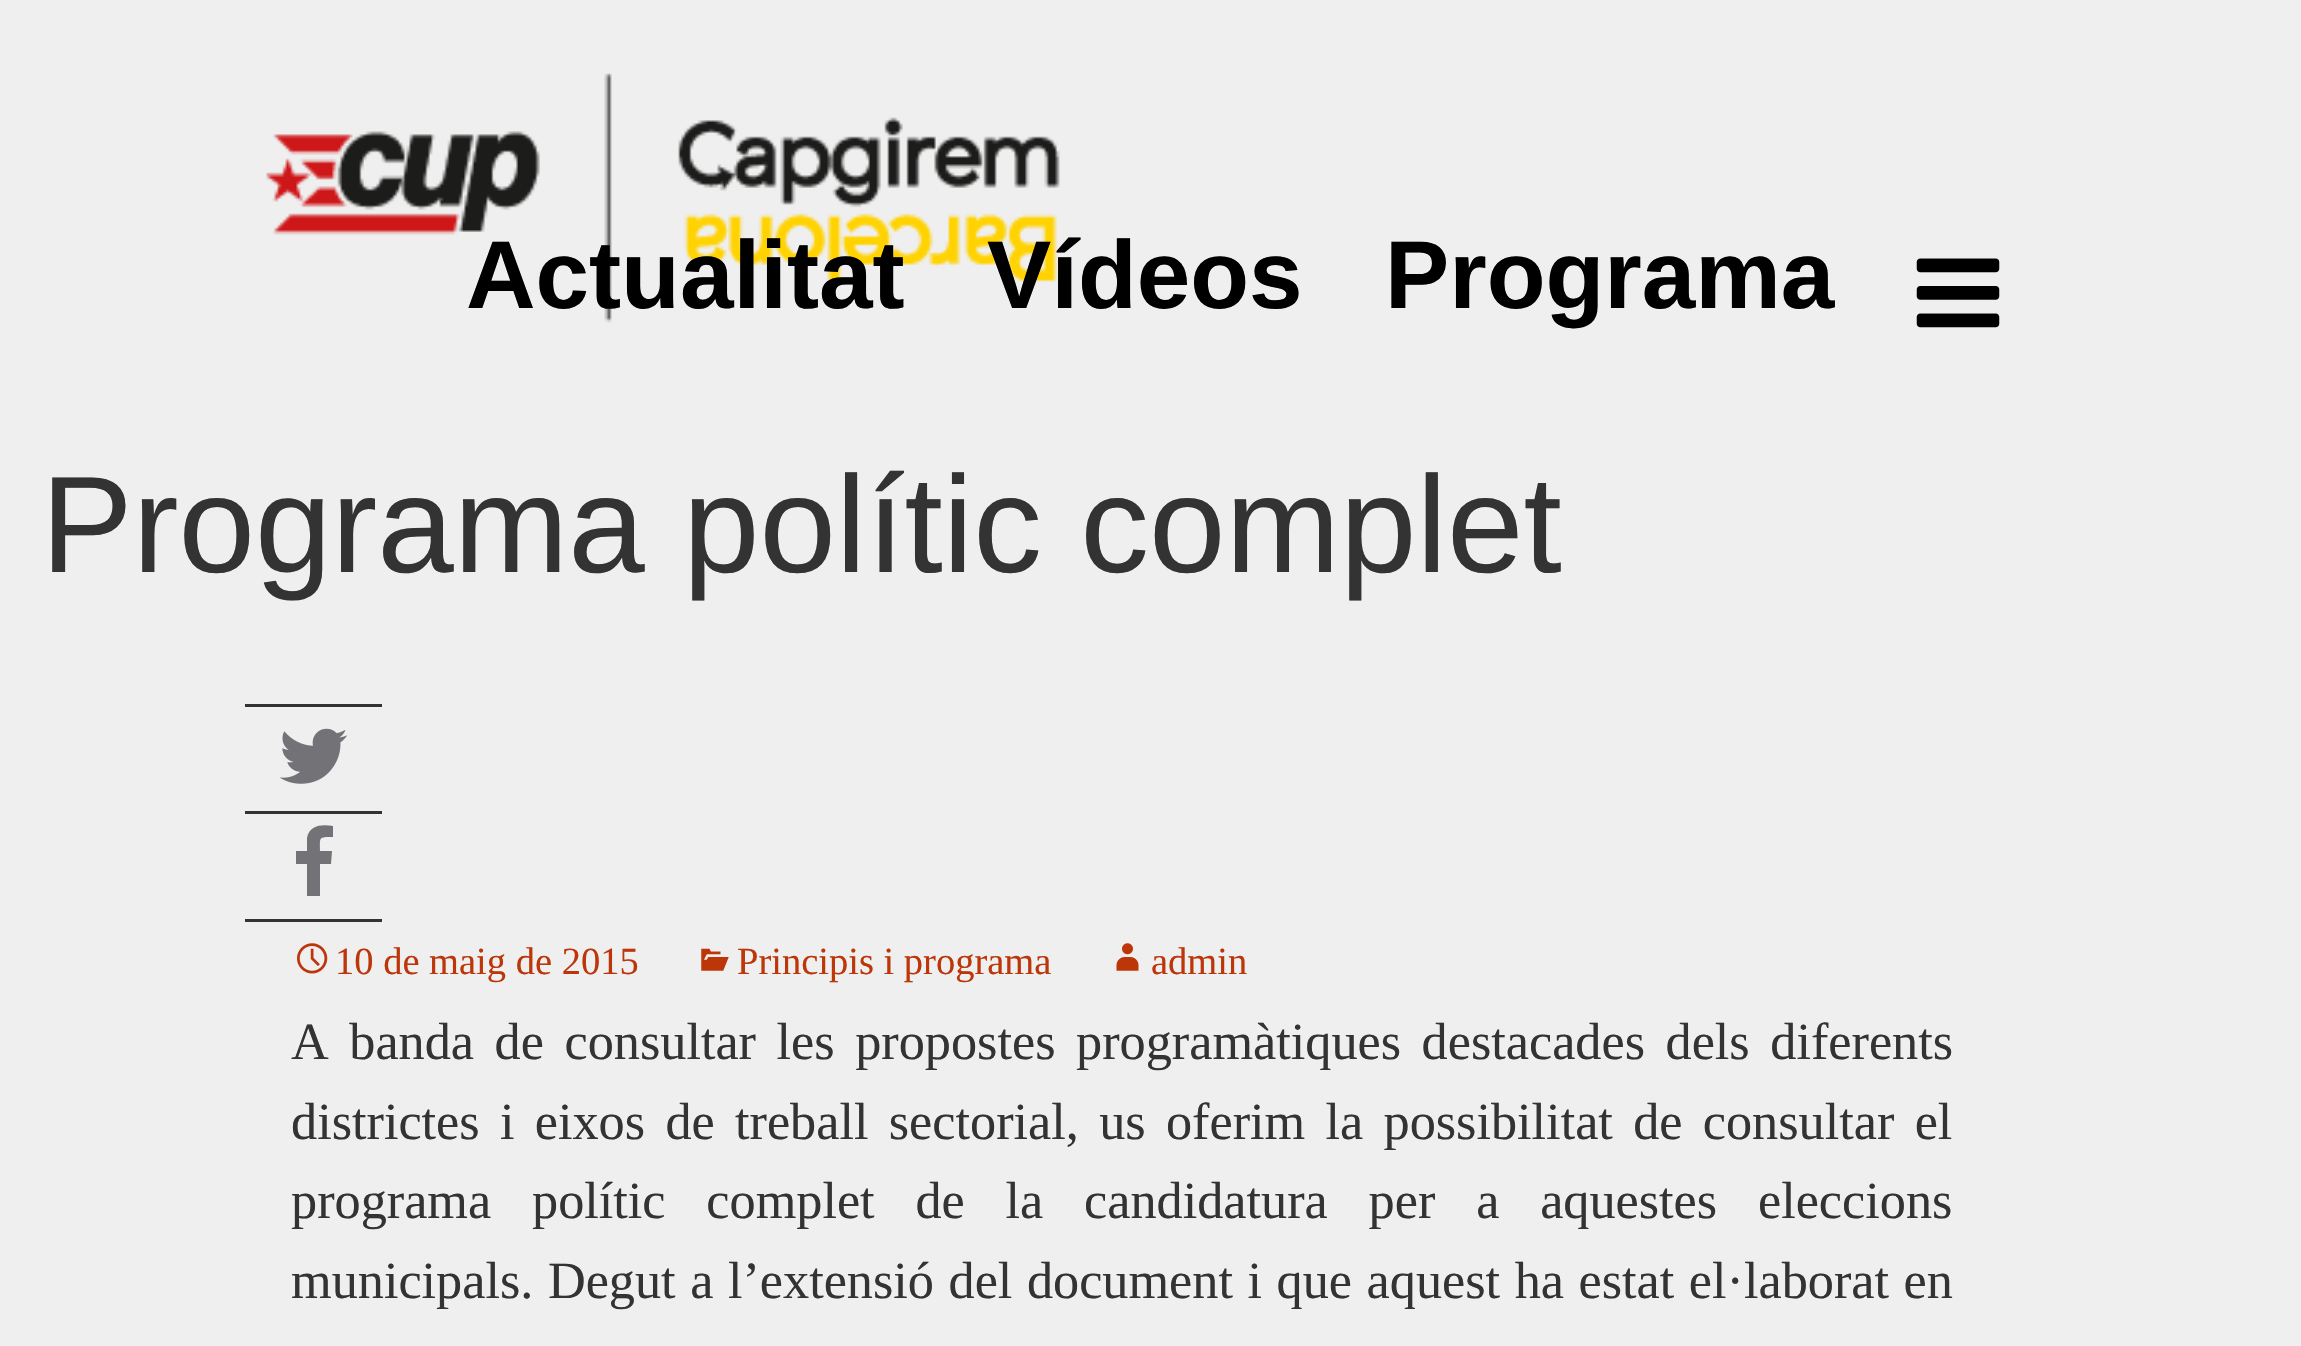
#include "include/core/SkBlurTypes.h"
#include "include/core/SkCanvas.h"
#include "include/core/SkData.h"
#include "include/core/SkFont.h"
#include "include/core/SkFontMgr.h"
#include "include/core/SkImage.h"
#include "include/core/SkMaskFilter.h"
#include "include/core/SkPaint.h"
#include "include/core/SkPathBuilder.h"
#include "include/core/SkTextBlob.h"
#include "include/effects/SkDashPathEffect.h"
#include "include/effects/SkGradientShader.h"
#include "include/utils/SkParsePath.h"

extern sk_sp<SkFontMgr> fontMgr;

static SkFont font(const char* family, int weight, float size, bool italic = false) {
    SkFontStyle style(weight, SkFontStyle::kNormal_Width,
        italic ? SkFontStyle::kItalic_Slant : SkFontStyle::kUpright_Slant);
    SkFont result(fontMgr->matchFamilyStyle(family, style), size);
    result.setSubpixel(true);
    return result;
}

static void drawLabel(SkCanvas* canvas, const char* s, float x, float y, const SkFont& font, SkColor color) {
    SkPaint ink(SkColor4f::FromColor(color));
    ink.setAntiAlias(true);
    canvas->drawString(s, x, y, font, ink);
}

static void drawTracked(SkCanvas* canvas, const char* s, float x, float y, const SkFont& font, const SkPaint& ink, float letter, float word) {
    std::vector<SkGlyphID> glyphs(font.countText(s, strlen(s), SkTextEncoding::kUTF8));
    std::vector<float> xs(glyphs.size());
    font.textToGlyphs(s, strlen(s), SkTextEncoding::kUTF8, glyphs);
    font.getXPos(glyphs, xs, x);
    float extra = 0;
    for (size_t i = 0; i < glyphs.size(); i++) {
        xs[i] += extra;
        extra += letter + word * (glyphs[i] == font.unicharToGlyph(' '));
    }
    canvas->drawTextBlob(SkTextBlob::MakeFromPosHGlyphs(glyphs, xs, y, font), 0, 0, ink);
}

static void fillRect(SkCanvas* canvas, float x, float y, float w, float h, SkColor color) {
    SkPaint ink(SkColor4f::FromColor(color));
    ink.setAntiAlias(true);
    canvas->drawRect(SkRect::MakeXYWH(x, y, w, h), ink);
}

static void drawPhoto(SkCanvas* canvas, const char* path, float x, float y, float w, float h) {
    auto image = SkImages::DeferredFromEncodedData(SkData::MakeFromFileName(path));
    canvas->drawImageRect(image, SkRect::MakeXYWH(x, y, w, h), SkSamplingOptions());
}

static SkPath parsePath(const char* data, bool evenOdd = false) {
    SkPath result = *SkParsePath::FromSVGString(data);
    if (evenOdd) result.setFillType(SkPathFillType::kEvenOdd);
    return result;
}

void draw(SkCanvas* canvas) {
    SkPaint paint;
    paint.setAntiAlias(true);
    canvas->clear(0xFFEFEFEF);
    drawPhoto(canvas, "assets/img1.png", 266, 73, 794, 250);
    SkFont font1 = font("Liberation Sans", 700, 96.25f);
    drawLabel(canvas, "Actualitat", 466, 308, font1, 0xFF000000);
    drawLabel(canvas, "Vídeos", 987, 308, font1, 0xFF000000);
    drawLabel(canvas, "Programa", 1385, 308, font1, 0xFF000000);
    drawPhoto(canvas, "assets/img2.png", 1916, 258, 84, 70);
    SkFont font2 = font("Liberation Sans", 400, 137.5f);
    drawLabel(canvas, "Programa polític complet", 41, 572, font2, 0xFF333333);
    fillRect(canvas, 245, 704, 137, 3, 0xFF333333);
    drawPhoto(canvas, "assets/img3.png", 279, 728, 69, 56);
    fillRect(canvas, 245, 811, 137, 3, 0xFF333333);
    fillRect(canvas, 245, 919, 137, 3, 0xFF333333);
    paint.setColor(0xFF737276);
    canvas->drawPath(parsePath("M333 826V837C318 837 320 837 320 851H332L331 864H320V896H307V864H296V851H307V838C309 825 322 824 333 826Z"), paint);
    drawPhoto(canvas, "assets/img4.png", 297, 943, 31, 31);
    SkFont font3 = font("Liberation Serif", 400, 38.5f);
    drawLabel(canvas, "10 de maig de 2015", 335, 974, font3, 0xFFBC360A);
    drawPhoto(canvas, "assets/img5.png", 701, 948, 28, 23);
    drawLabel(canvas, "Principis i programa", 737, 974, font3, 0xFFBC360A);
    drawPhoto(canvas, "assets/img6.png", 1116, 943, 23, 28);
    drawLabel(canvas, "admin", 1151, 974, font3, 0xFFBC360A);
    SkFont font4 = font("Liberation Serif", 400, 52.25f);
    paint.setColor(0xFF333333);
    drawTracked(canvas, "A banda de consultar les propostes programàtiques destacades dels diferents", 291, 1059, font4, paint, 0, 7.5f);
    drawTracked(canvas, "districtes i eixos de treball sectorial, us oferim la possibilitat de consultar el", 291, 1139, font4, paint, 0, 7.25f);
    drawTracked(canvas, "programa polític complet de la candidatura per a aquestes eleccions", 291, 1218, font4, paint, 0, 27.75f);
    drawTracked(canvas, "municipals. Degut a l’extensió del document i que aquest ha estat el·laborat en", 291, 1298, font4, paint, 0, 1.5f);
}
